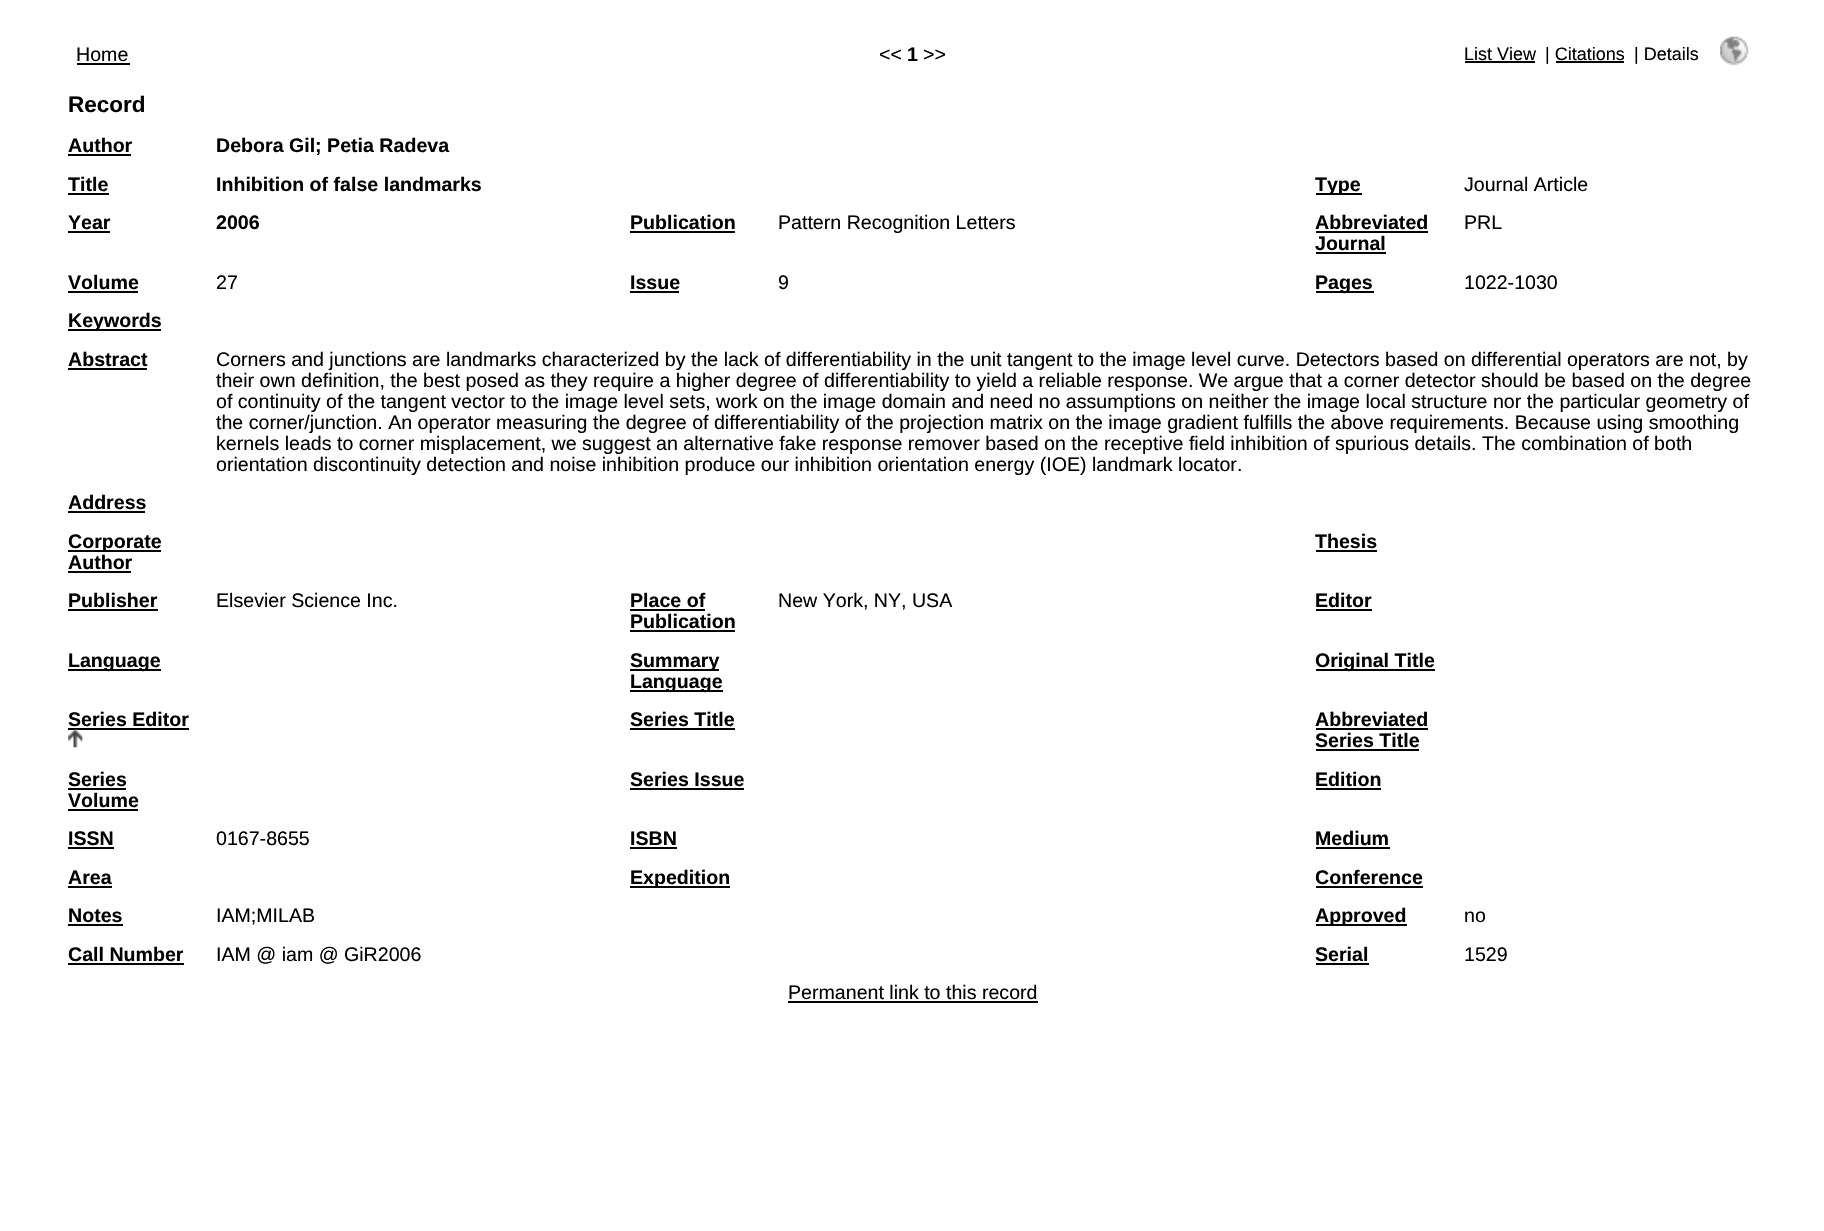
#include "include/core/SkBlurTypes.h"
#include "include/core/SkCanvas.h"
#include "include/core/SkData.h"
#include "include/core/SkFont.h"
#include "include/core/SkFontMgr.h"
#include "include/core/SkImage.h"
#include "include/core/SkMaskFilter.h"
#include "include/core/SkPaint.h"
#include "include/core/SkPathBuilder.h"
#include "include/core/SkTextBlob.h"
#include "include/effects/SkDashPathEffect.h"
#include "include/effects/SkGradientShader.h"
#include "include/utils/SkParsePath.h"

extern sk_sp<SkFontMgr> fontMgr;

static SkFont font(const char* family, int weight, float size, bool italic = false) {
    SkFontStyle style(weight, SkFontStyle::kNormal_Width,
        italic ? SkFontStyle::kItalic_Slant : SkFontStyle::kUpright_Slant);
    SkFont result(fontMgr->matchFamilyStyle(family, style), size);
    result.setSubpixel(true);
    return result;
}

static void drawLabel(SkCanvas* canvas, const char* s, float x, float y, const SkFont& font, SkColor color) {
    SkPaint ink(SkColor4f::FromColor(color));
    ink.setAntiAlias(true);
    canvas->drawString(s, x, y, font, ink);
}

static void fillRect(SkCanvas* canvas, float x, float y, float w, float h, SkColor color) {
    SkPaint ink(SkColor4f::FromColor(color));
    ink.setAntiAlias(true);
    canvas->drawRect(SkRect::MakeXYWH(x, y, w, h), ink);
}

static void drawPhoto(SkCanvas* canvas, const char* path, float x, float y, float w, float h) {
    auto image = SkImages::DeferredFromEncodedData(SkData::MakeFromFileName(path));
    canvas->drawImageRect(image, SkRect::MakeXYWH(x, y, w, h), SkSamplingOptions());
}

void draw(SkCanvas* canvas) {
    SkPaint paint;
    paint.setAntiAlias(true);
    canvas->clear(0xFFFFFFFF);
    SkFont font1 = font("Liberation Sans", 400, 19.6f);
    drawLabel(canvas, "Home", 76, 61, font1, 0xFF000000);
    fillRect(canvas, 77, 63, 53, 2, 0xFF000000);
    drawLabel(canvas, "<<", 879, 61, font1, 0xFF000000);
    SkFont font2 = font("Liberation Sans", 700, 19.6f);
    drawLabel(canvas, "1", 907, 61, font2, 0xFF000000);
    drawLabel(canvas, ">>", 923, 61, font1, 0xFF000000);
    SkFont font3 = font("Liberation Sans", 400, 18);
    drawLabel(canvas, "List View", 1464, 60, font3, 0xFF000000);
    fillRect(canvas, 1465, 61, 70, 2, 0xFF000000);
    drawLabel(canvas, "| Citations", 1545, 60, font3, 0xFF000000);
    fillRect(canvas, 1556, 61, 68, 2, 0xFF000000);
    drawLabel(canvas, "| Details", 1634, 60, font3, 0xFF000000);
    drawPhoto(canvas, "assets/img1.png", 1720, 36, 29, 29);
    SkFont font4 = font("Liberation Sans", 700, 22.5f);
    drawLabel(canvas, "Record", 68, 112, font4, 0xFF000000);
    drawLabel(canvas, "Author", 68, 152, font2, 0xFF000000);
    fillRect(canvas, 68, 154, 63, 2, 0xFF000000);
    drawLabel(canvas, "Debora Gil; Petia Radeva", 216, 152, font2, 0xFF000000);
    drawLabel(canvas, "Title", 68, 191, font2, 0xFF000000);
    fillRect(canvas, 68, 193, 41, 2, 0xFF000000);
    drawLabel(canvas, "Inhibition of false landmarks", 216, 191, font2, 0xFF000000);
    fillRect(canvas, 1316, 193, 46, 2, 0xFF000000);
    drawLabel(canvas, "Type", 1315, 191, font2, 0xFF000000);
    drawLabel(canvas, "Journal Article", 1464, 191, font1, 0xFF000000);
    drawLabel(canvas, "Year", 68, 229, font2, 0xFF000000);
    fillRect(canvas, 68, 231, 42, 2, 0xFF000000);
    drawLabel(canvas, "2006", 216, 229, font2, 0xFF000000);
    drawLabel(canvas, "Publication", 630, 229, font2, 0xFF000000);
    fillRect(canvas, 630, 231, 105, 2, 0xFF000000);
    drawLabel(canvas, "Pattern Recognition Letters", 778, 229, font1, 0xFF000000);
    drawLabel(canvas, "Abbreviated", 1315, 229, font2, 0xFF000000);
    fillRect(canvas, 1316, 231, 112, 2, 0xFF000000);
    drawLabel(canvas, "Journal", 1315, 250, font2, 0xFF000000);
    fillRect(canvas, 1316, 252, 70, 2, 0xFF000000);
    drawLabel(canvas, "PRL", 1464, 229, font1, 0xFF000000);
    drawLabel(canvas, "Volume", 68, 289, font2, 0xFF000000);
    fillRect(canvas, 68, 291, 70, 2, 0xFF000000);
    drawLabel(canvas, "27", 216, 289, font1, 0xFF000000);
    drawLabel(canvas, "Issue", 630, 289, font2, 0xFF000000);
    fillRect(canvas, 630, 291, 49, 2, 0xFF000000);
    drawLabel(canvas, "9", 778, 289, font1, 0xFF000000);
    fillRect(canvas, 1316, 291, 58, 2, 0xFF000000);
    drawLabel(canvas, "Pages", 1315, 289, font2, 0xFF000000);
    drawLabel(canvas, "1022-1030", 1464, 289, font1, 0xFF000000);
    fillRect(canvas, 68, 329, 93, 2, 0xFF000000);
    drawLabel(canvas, "Keywords", 68, 327, font2, 0xFF000000);
    drawLabel(canvas, "Abstract", 68, 366, font2, 0xFF000000);
    fillRect(canvas, 68, 368, 79, 2, 0xFF000000);
    drawLabel(canvas, "Corners and junctions are landmarks characterized by the lack of differentiability in the unit tangent to the image level curve. Detectors based on differential operators are not, by", 216, 366, font1, 0xFF000000);
    drawLabel(canvas, "their own definition, the best posed as they require a higher degree of differentiability to yield a reliable response. We argue that a corner detector should be based on the degree", 216, 387, font1, 0xFF000000);
    drawLabel(canvas, "of continuity of the tangent vector to the image level sets, work on the image domain and need no assumptions on neither the image local structure nor the particular geometry of", 216, 408, font1, 0xFF000000);
    drawLabel(canvas, "the corner/junction. An operator measuring the degree of differentiability of the projection matrix on the image gradient fulfills the above requirements. Because using smoothing", 216, 429, font1, 0xFF000000);
    drawLabel(canvas, "kernels leads to corner misplacement, we suggest an alternative fake response remover based on the receptive field inhibition of spurious details. The combination of both", 216, 450, font1, 0xFF000000);
    drawLabel(canvas, "orientation discontinuity detection and noise inhibition produce our inhibition orientation energy (IOE) landmark locator.", 216, 471, font1, 0xFF000000);
    drawLabel(canvas, "Address", 68, 509, font2, 0xFF000000);
    fillRect(canvas, 68, 511, 77, 2, 0xFF000000);
    fillRect(canvas, 68, 550, 93, 2, 0xFF000000);
    drawLabel(canvas, "Corporate", 68, 548, font2, 0xFF000000);
    drawLabel(canvas, "Author", 68, 569, font2, 0xFF000000);
    fillRect(canvas, 68, 571, 63, 2, 0xFF000000);
    drawLabel(canvas, "Thesis", 1315, 548, font2, 0xFF000000);
    fillRect(canvas, 1316, 550, 61, 2, 0xFF000000);
    drawLabel(canvas, "Publisher", 68, 607, font2, 0xFF000000);
    fillRect(canvas, 68, 609, 90, 2, 0xFF000000);
    drawLabel(canvas, "Elsevier Science Inc.", 216, 607, font1, 0xFF000000);
    drawLabel(canvas, "Place of", 630, 607, font2, 0xFF000000);
    fillRect(canvas, 630, 609, 75, 2, 0xFF000000);
    drawLabel(canvas, "Publication", 630, 628, font2, 0xFF000000);
    fillRect(canvas, 630, 630, 105, 2, 0xFF000000);
    drawLabel(canvas, "New York, NY, USA", 778, 607, font1, 0xFF000000);
    drawLabel(canvas, "Editor", 1315, 607, font2, 0xFF000000);
    fillRect(canvas, 1316, 609, 56, 2, 0xFF000000);
    fillRect(canvas, 68, 669, 93, 2, 0xFF000000);
    drawLabel(canvas, "Language", 68, 667, font2, 0xFF000000);
    fillRect(canvas, 630, 669, 89, 2, 0xFF000000);
    drawLabel(canvas, "Summary", 630, 667, font2, 0xFF000000);
    fillRect(canvas, 630, 690, 93, 2, 0xFF000000);
    drawLabel(canvas, "Language", 630, 688, font2, 0xFF000000);
    fillRect(canvas, 1316, 669, 119, 2, 0xFF000000);
    drawLabel(canvas, "Original Title", 1315, 667, font2, 0xFF000000);
    drawLabel(canvas, "Series Editor", 68, 726, font2, 0xFF000000);
    fillRect(canvas, 68, 728, 121, 2, 0xFF000000);
    drawPhoto(canvas, "assets/img2.png", 68, 729, 15, 19);
    drawLabel(canvas, "Series Title", 630, 726, font2, 0xFF000000);
    fillRect(canvas, 630, 728, 105, 2, 0xFF000000);
    drawLabel(canvas, "Abbreviated", 1315, 726, font2, 0xFF000000);
    fillRect(canvas, 1316, 728, 112, 2, 0xFF000000);
    drawLabel(canvas, "Series Title", 1315, 747, font2, 0xFF000000);
    fillRect(canvas, 1316, 749, 103, 2, 0xFF000000);
    drawLabel(canvas, "Series", 68, 786, font2, 0xFF000000);
    fillRect(canvas, 68, 788, 58, 2, 0xFF000000);
    drawLabel(canvas, "Volume", 68, 807, font2, 0xFF000000);
    fillRect(canvas, 68, 809, 70, 2, 0xFF000000);
    drawLabel(canvas, "Series Issue", 630, 786, font2, 0xFF000000);
    fillRect(canvas, 630, 788, 114, 2, 0xFF000000);
    drawLabel(canvas, "Edition", 1315, 786, font2, 0xFF000000);
    fillRect(canvas, 1316, 788, 65, 2, 0xFF000000);
    drawLabel(canvas, "ISSN", 68, 845, font2, 0xFF000000);
    fillRect(canvas, 68, 847, 46, 2, 0xFF000000);
    drawLabel(canvas, "0167-8655", 216, 845, font1, 0xFF000000);
    drawLabel(canvas, "ISBN", 630, 845, font2, 0xFF000000);
    fillRect(canvas, 630, 847, 47, 2, 0xFF000000);
    drawLabel(canvas, "Medium", 1315, 845, font2, 0xFF000000);
    fillRect(canvas, 1316, 847, 74, 2, 0xFF000000);
    drawLabel(canvas, "Area", 68, 884, font2, 0xFF000000);
    fillRect(canvas, 68, 886, 44, 2, 0xFF000000);
    fillRect(canvas, 630, 886, 100, 2, 0xFF000000);
    drawLabel(canvas, "Expedition", 630, 884, font2, 0xFF000000);
    drawLabel(canvas, "Conference", 1315, 884, font2, 0xFF000000);
    fillRect(canvas, 1316, 886, 107, 2, 0xFF000000);
    drawLabel(canvas, "Notes", 68, 922, font2, 0xFF000000);
    fillRect(canvas, 68, 924, 55, 2, 0xFF000000);
    drawLabel(canvas, "IAM;MILAB", 216, 922, font1, 0xFF000000);
    fillRect(canvas, 1316, 924, 91, 2, 0xFF000000);
    drawLabel(canvas, "Approved", 1315, 922, font2, 0xFF000000);
    drawLabel(canvas, "no", 1464, 922, font1, 0xFF000000);
    drawLabel(canvas, "Call Number", 68, 961, font2, 0xFF000000);
    fillRect(canvas, 68, 963, 116, 2, 0xFF000000);
    drawLabel(canvas, "IAM @ iam @ GiR2006", 216, 961, font1, 0xFF000000);
    drawLabel(canvas, "Serial", 1315, 961, font2, 0xFF000000);
    fillRect(canvas, 1316, 963, 53, 2, 0xFF000000);
    drawLabel(canvas, "1529", 1464, 961, font1, 0xFF000000);
    drawLabel(canvas, "Permanent link to this record", 788, 999, font1, 0xFF000000);
    fillRect(canvas, 788, 1001, 250, 2, 0xFF000000);
}
